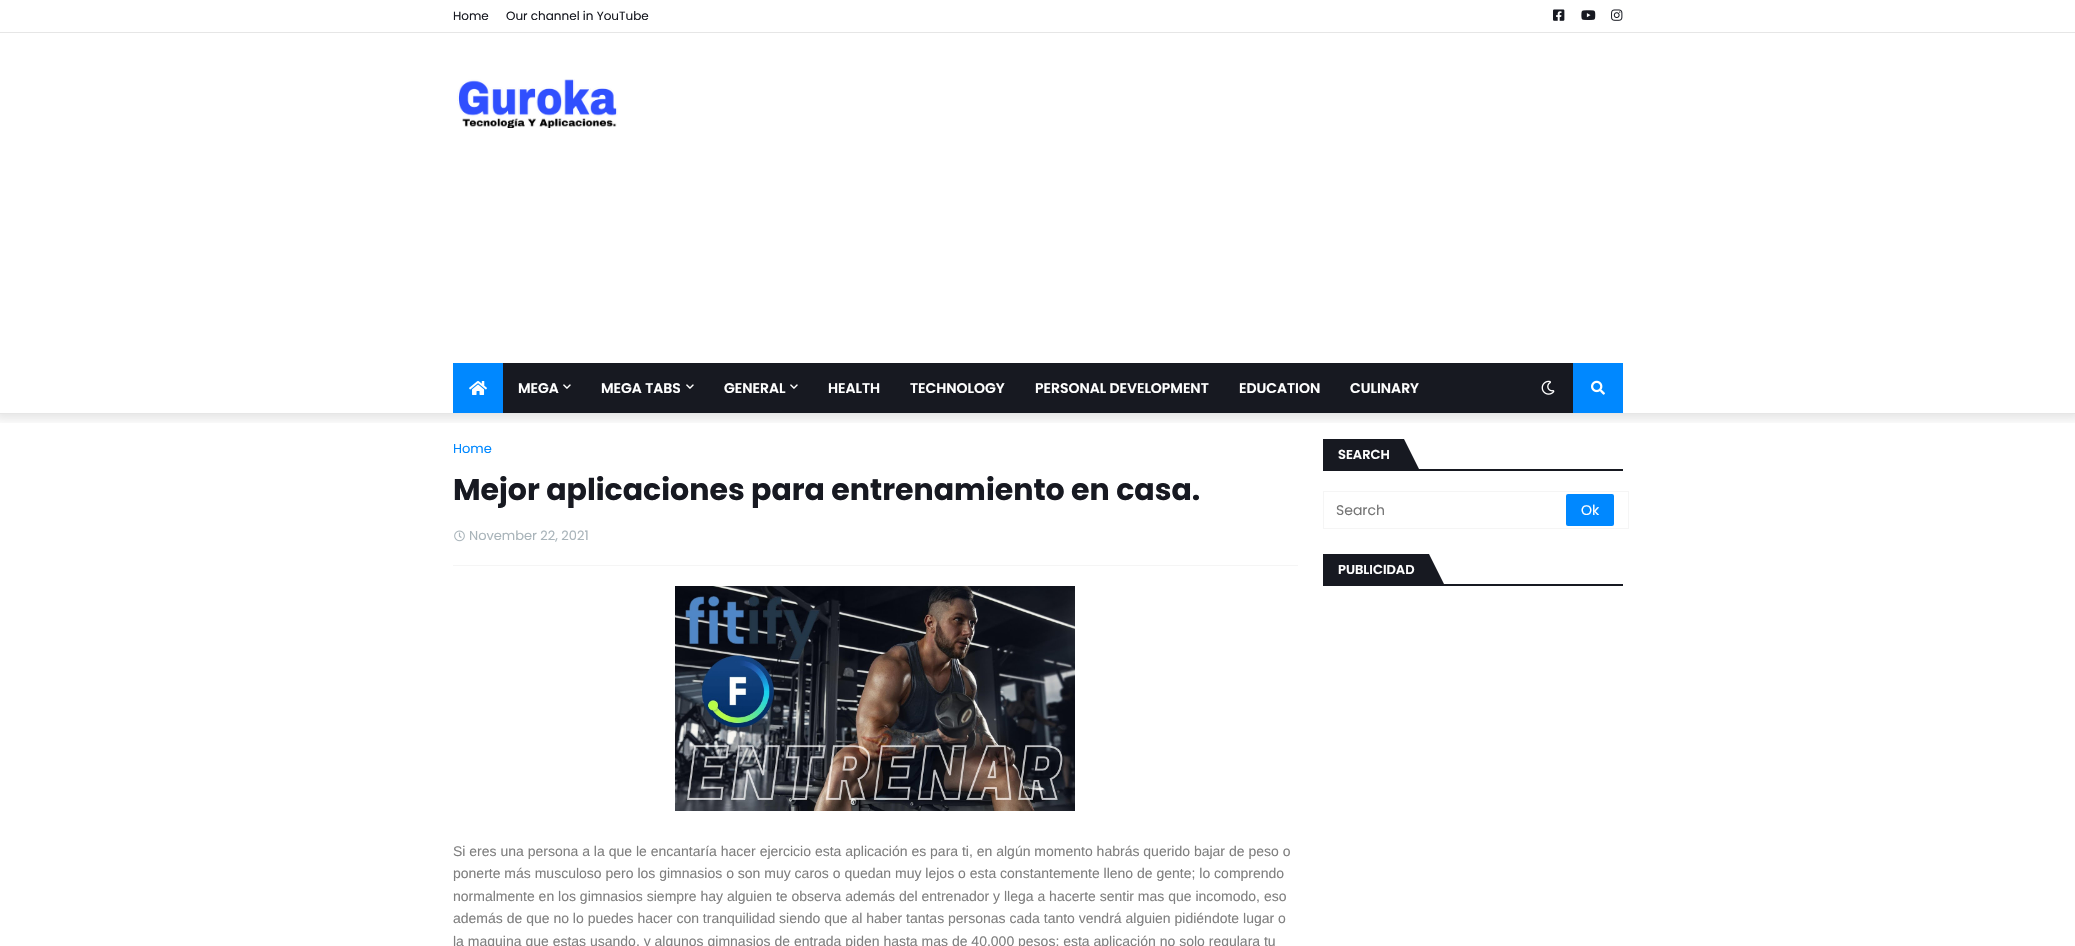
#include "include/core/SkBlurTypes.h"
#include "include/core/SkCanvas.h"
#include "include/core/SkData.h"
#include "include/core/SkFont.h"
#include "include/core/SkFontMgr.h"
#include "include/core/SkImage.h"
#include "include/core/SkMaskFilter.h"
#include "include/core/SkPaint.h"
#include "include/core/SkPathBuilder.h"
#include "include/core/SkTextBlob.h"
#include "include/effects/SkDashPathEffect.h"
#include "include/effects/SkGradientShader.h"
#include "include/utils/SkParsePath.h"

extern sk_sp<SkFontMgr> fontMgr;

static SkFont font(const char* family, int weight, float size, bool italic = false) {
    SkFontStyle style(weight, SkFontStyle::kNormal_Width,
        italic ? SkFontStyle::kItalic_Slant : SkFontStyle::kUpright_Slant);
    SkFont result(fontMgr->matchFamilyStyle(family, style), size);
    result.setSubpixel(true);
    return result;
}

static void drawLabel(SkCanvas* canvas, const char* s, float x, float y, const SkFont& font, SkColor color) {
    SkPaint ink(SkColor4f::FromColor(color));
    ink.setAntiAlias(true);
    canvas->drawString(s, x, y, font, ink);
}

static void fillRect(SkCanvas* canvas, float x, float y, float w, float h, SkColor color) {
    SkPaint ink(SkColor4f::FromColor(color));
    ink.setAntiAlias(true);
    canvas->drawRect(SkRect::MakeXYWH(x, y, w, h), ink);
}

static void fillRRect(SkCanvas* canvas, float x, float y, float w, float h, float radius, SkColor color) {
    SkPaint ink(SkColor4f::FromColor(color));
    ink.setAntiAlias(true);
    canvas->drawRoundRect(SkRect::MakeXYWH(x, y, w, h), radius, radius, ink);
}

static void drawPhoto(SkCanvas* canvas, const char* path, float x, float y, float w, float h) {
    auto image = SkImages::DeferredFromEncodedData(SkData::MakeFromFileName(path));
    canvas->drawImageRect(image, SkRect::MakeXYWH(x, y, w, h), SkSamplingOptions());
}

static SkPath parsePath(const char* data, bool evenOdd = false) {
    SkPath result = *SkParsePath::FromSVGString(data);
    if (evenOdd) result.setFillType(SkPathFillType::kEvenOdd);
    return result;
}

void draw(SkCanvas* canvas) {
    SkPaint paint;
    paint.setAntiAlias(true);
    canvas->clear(0xFFFFFFFF);
    canvas->save();
    canvas->clipRect(SkRect::MakeXYWH(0, 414, 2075, 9));
    paint.setColor(0x1A000000);
    paint.setMaskFilter(SkMaskFilter::MakeBlur(kNormal_SkBlurStyle, 5));
    canvas->drawRect(SkRect::MakeXYWH(-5, -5, 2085, 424), paint);
    paint.setMaskFilter(nullptr);
    canvas->restore();
    fillRect(canvas, 0, 32, 2075, 1, 0xFFE6E6E6);
    SkFont font1 = font("Poppins", 400, 12);
    drawLabel(canvas, "Home", 453, 20, font1, 0xFF171921);
    drawLabel(canvas, "Our channel in YouTube", 506, 20, font1, 0xFF171921);
    drawPhoto(canvas, "assets/img1.png", 1553, 9, 12, 12);
    drawPhoto(canvas, "assets/img2.png", 1581, 10, 15, 10);
    drawPhoto(canvas, "assets/img3.png", 1611, 9, 12, 12);
    drawPhoto(canvas, "assets/img4.png", 457, 79, 161, 49);
    fillRect(canvas, 0, 413, 2075, 1, 0xFFE6E6E6);
    fillRect(canvas, 503, 363, 1070, 50, 0xFF171921);
    fillRect(canvas, 453, 363, 50, 50, 0xFF0088FF);
    drawPhoto(canvas, "assets/img5.png", 469, 381, 18, 14);
    SkFont font2 = font("Poppins", 600, 14);
    drawLabel(canvas, "MEGA", 518, 393, font2, 0xFFFFFFFF);
    drawPhoto(canvas, "assets/img6.png", 563, 384, 8, 5);
    drawLabel(canvas, "MEGA TABS", 601, 393, font2, 0xFFFFFFFF);
    drawPhoto(canvas, "assets/img6.png", 686, 384, 8, 5);
    drawLabel(canvas, "GENERAL", 724, 393, font2, 0xFFFFFFFF);
    drawPhoto(canvas, "assets/img6.png", 790, 384, 8, 5);
    drawLabel(canvas, "HEALTH", 828, 393, font2, 0xFFFFFFFF);
    drawLabel(canvas, "TECHNOLOGY", 910, 393, font2, 0xFFFFFFFF);
    drawLabel(canvas, "PERSONAL DEVELOPMENT", 1035, 393, font2, 0xFFFFFFFF);
    drawLabel(canvas, "EDUCATION", 1239, 393, font2, 0xFFFFFFFF);
    drawLabel(canvas, "CULINARY", 1350, 393, font2, 0xFFFFFFFF);
    drawPhoto(canvas, "assets/img7.png", 1541, 380, 14, 15);
    fillRect(canvas, 1573, 363, 50, 50, 0xFF0088FF);
    drawPhoto(canvas, "assets/img8.png", 1591, 380, 14, 15);
    fillRect(canvas, 453, 565, 845, 1, 0xFFF5F5F5);
    SkFont font3 = font("Poppins", 400, 13);
    drawLabel(canvas, "Home", 453, 453, font3, 0xFF0088FF);
    SkFont font4 = font("Poppins", 700, 30);
    drawLabel(canvas, "Mejor aplicaciones para entrenamiento en casa.", 453, 500, font4, 0xFF171921);
    drawPhoto(canvas, "assets/img9.png", 454, 530, 11, 12);
    drawLabel(canvas, "November 22, 2021", 469, 540, font3, 0xFFA9B4BA);
    drawPhoto(canvas, "assets/img10.png", 675, 586, 400, 225);
    SkFont font5 = font("Liberation Sans", 400, 14);
    drawLabel(canvas, "Si eres una persona a la que le encantaría hacer ejercicio esta aplicación es para ti, en algún momento habrás querido bajar de peso o", 453, 856, font5, 0xFF7F7F7F);
    drawLabel(canvas, "ponerte más musculoso pero los gimnasios o son muy caros o quedan muy lejos o esta constantemente lleno de gente; lo comprendo", 453, 878, font5, 0xFF7F7F7F);
    drawLabel(canvas, "normalmente en los gimnasios siempre hay alguien te observa además del entrenador y llega a hacerte sentir mas que incomodo, eso", 453, 901, font5, 0xFF7F7F7F);
    drawLabel(canvas, "además de que no lo puedes hacer con tranquilidad siendo que al haber tantas personas cada tanto vendrá alguien pidiéndote lugar o", 453, 923, font5, 0xFF7F7F7F);
    drawLabel(canvas, "la maquina que estas usando, y algunos gimnasios de entrada piden hasta mas de 40.000 pesos; esta aplicación no solo regulara tu", 453, 946, font5, 0xFF7F7F7F);
    fillRect(canvas, 1419, 469, 204, 2, 0xFF171921);
    fillRect(canvas, 1323, 439, 81, 32, 0xFF171921);
    SkFont font6 = font("Poppins", 600, 13);
    drawLabel(canvas, "SEARCH", 1338, 459, font6, 0xFFFFFFFF);
    paint.setColor(0xFF171921);
    canvas->drawPath(parsePath("M1404 471V439L1420 471Z"), paint);
    paint.setStroke(true);
    paint.setStrokeWidth(1);
    paint.setColor(0xFFF5F5F5);
    canvas->drawRect(SkRect::MakeXYWH(1323.5f, 491.5f, 305, 37), paint);
    SkFont font7 = font("Poppins", 400, 14);
    drawLabel(canvas, "Search", 1336, 515, font7, 0xFF757575);
    fillRRect(canvas, 1566, 494, 48, 32, 2, 0xFF0088FF);
    drawLabel(canvas, "Ok", 1581, 515, font7, 0xFFFFFFFF);
    fillRect(canvas, 1444, 584, 179, 2, 0xFF171921);
    fillRect(canvas, 1323, 554, 106, 32, 0xFF171921);
    drawLabel(canvas, "PUBLICIDAD", 1338, 574, font6, 0xFFFFFFFF);
    paint.setStroke(false);
    paint.setColor(0xFF171921);
    canvas->drawPath(parsePath("M1429 586V554L1445 586Z"), paint);
}
